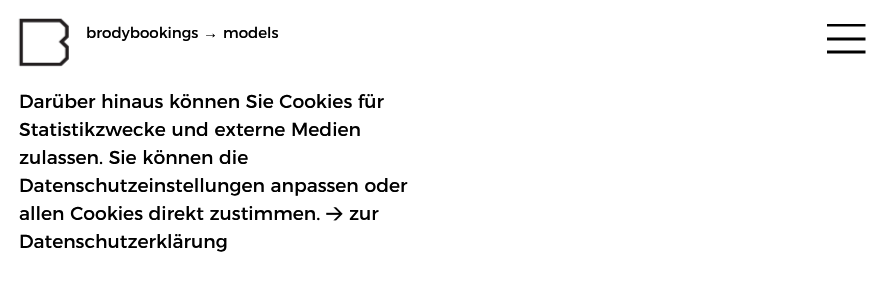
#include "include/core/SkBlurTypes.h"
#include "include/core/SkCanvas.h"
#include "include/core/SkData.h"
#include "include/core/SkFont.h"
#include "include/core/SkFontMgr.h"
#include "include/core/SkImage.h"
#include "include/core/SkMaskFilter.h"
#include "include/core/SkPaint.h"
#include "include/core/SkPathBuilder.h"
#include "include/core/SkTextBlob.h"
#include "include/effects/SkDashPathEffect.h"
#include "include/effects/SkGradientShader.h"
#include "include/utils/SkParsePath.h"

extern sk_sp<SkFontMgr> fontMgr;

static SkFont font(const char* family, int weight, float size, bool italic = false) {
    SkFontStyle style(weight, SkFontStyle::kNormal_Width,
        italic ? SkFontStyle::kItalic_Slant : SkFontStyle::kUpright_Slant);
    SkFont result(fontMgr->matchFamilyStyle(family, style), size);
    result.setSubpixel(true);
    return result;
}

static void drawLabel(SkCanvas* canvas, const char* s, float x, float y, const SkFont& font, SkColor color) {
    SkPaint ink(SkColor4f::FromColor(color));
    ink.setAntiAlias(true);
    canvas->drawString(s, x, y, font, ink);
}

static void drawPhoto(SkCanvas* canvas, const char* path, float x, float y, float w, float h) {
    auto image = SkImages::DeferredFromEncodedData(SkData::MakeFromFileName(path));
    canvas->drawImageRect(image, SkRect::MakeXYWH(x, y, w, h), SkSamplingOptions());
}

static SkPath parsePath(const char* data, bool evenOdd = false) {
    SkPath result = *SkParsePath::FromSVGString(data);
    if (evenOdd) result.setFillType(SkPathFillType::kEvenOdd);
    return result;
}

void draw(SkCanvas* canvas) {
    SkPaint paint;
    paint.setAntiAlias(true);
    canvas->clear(0xFFFFFFFF);
    drawPhoto(canvas, "assets/img1.png", 18, 18, 51, 49);
    canvas->save();
    canvas->clipRect(SkRect::MakeXYWH(826, 24, 40, 30));
    paint.setStroke(true);
    paint.setStrokeWidth(2.8f);
    paint.setColor(0xFF000000);
    canvas->drawPath(parsePath("M827 25H865.5"), paint);
    canvas->restore();
    canvas->drawPath(parsePath("M827 39H865.5M827 52H865.5"), paint);
    SkFont font1 = font("Montserrat", 400, 15);
    drawLabel(canvas, "brodybookings", 86, 38, font1, 0xFF000000);
    SkFont font2 = font("Liberation Sans", 400, 15);
    drawLabel(canvas, "→", 203, 38, font2, 0xFF000000);
    drawLabel(canvas, "models", 223, 38, font1, 0xFF000000);
    SkFont font3 = font("Montserrat", 400, 18.75f);
    drawLabel(canvas, "Darüber hinaus können Sie Cookies für", 19, 108, font3, 0xFF000000);
    drawLabel(canvas, "Statistikzwecke und externe Medien", 19, 136, font3, 0xFF000000);
    drawLabel(canvas, "zulassen. Sie können die", 19, 164, font3, 0xFF000000);
    drawLabel(canvas, "Datenschutzeinstellungen anpassen oder", 19, 192, font3, 0xFF000000);
    drawLabel(canvas, "allen Cookies direkt zustimmen.", 19, 220, font3, 0xFF000000);
    drawPhoto(canvas, "assets/img2.png", 326, 207, 17, 14);
    drawLabel(canvas, "zur", 349, 220, font3, 0xFF000000);
    drawLabel(canvas, "Datenschutzerklärung", 19, 248, font3, 0xFF000000);
}
